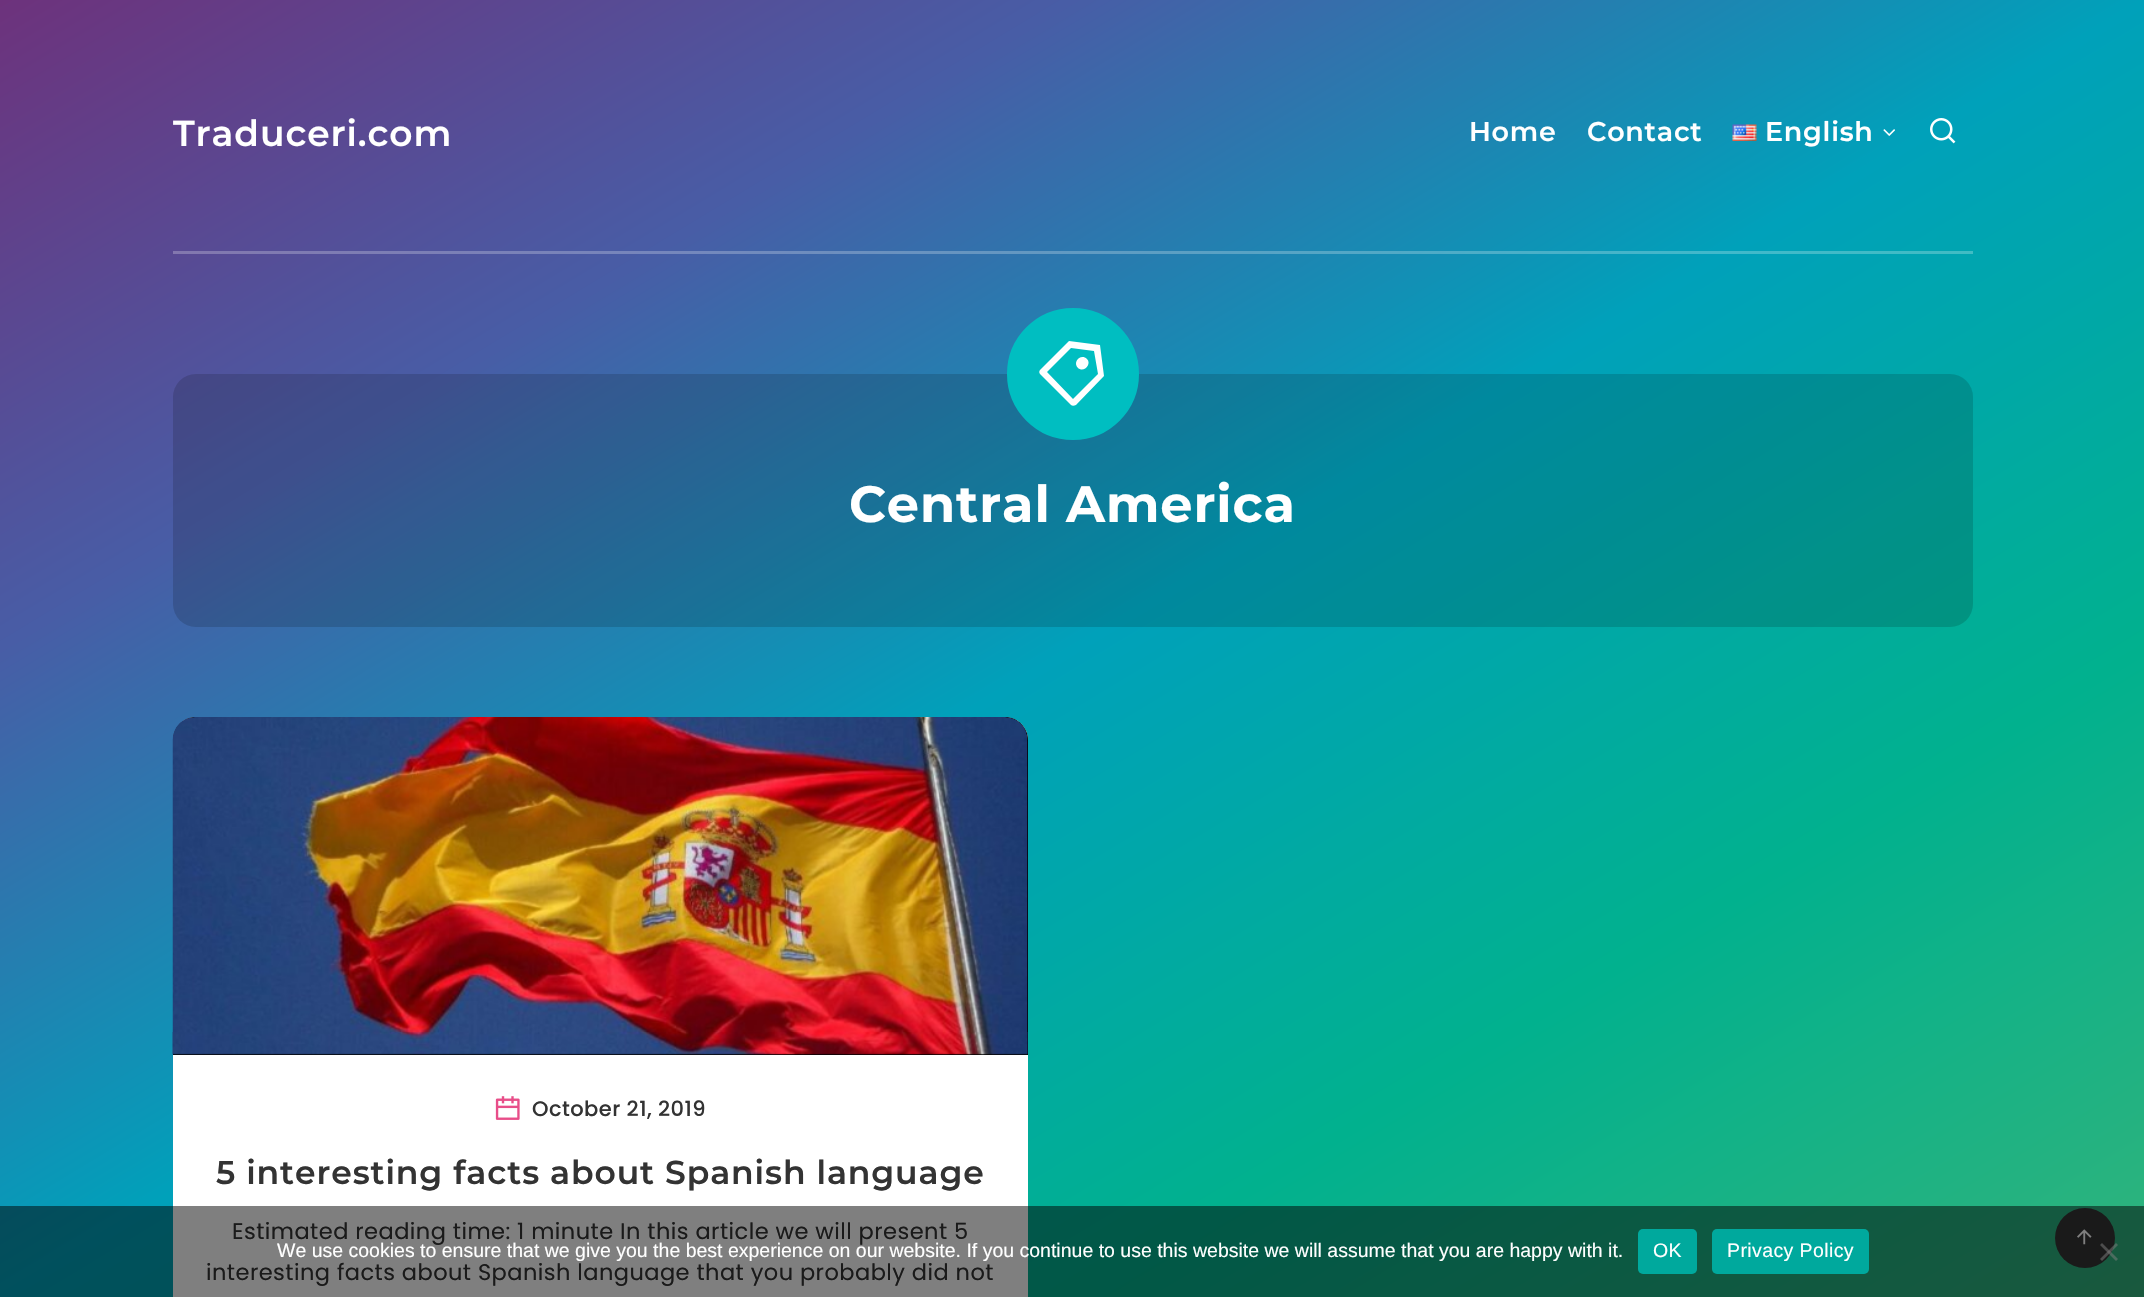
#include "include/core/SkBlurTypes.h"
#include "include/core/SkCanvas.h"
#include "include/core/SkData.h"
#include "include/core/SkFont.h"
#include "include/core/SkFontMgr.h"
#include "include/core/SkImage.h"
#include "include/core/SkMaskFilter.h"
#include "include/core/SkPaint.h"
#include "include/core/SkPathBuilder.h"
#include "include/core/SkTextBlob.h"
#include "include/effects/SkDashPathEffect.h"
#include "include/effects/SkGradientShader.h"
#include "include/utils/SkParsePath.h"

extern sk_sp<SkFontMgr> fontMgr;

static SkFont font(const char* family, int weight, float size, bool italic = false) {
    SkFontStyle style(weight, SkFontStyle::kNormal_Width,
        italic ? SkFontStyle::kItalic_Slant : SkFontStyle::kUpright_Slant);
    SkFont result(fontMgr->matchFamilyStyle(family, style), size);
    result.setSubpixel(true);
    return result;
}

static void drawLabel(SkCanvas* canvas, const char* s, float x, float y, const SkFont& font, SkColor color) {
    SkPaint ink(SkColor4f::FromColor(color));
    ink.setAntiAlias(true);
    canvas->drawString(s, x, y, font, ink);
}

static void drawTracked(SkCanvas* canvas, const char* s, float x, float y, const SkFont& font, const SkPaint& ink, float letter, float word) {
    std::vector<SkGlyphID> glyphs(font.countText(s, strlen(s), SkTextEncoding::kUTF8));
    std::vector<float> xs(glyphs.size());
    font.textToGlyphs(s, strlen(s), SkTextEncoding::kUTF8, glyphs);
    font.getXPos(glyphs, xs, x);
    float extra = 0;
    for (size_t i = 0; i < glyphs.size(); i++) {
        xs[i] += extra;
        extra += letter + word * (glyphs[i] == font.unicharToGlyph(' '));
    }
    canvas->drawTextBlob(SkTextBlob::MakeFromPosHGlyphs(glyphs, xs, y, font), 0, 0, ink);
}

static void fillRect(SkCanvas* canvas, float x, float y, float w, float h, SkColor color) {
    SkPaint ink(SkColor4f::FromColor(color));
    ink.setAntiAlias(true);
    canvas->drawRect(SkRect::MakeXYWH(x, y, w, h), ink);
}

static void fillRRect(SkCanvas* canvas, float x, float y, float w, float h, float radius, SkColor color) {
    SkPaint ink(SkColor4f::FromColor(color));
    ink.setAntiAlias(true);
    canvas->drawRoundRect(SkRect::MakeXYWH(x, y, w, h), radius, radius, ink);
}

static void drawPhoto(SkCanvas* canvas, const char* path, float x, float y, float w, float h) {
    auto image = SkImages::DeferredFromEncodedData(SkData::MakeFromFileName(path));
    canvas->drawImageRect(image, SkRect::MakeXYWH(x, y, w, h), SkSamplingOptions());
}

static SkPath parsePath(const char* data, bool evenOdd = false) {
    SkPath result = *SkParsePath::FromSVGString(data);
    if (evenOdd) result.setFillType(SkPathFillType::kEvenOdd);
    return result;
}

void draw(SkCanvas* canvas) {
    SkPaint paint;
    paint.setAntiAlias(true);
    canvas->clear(0xFFFFFFFF);
    {
        const SkColor colors[] = {0xFF6D327C, 0xFF485DA6, 0xFF00A1BA, 0xFF01B18E, 0xFF32B37B};
        const float stops[] = {0, 0.25f, 0.5f, 0.75f, 1};
        const SkPoint ends[] = {{498, -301}, {1647, 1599}};
        paint.setShader(SkGradientShader::MakeLinear(ends, colors, stops, 5, SkTileMode::kClamp));
        paint.setAlpha(255);
    }
    canvas->drawRect(SkRect::MakeXYWH(0, 0, 2144, 1297), paint);
    {
        const SkColor colors[] = {0xFF92659D, 0xFF7686BC, 0xFF40B9CB, 0xFF41C5AA, 0xFF65C69C};
        const float stops[] = {0, 0.25f, 0.5f, 0.75f, 1};
        const SkPoint ends[] = {{498, -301}, {1647, 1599}};
        paint.setShader(SkGradientShader::MakeLinear(ends, colors, stops, 5, SkTileMode::kClamp));
        paint.setAlpha(255);
    }
    canvas->drawRect(SkRect::MakeXYWH(173, 251, 1800, 3), paint);
    SkFont font1 = font("Montserrat", 600, 36);
    paint.setShader(nullptr);
    paint.setColor(0xFFFFFFFF);
    drawTracked(canvas, "Traduceri.com", 173, 146, font1, paint, 0.9f, 0);
    SkFont font2 = font("Montserrat", 600, 27);
    drawTracked(canvas, "Home", 1469, 141, font2, paint, 0.75f, 0);
    drawTracked(canvas, "Contact", 1587, 141, font2, paint, 0.75f, 0);
    drawPhoto(canvas, "assets/img1.png", 1732, 124, 25, 17);
    drawTracked(canvas, "English", 1765, 141, font2, paint, 0.75f, 0);
    drawPhoto(canvas, "assets/img2.png", 1883, 129, 12, 7);
    drawPhoto(canvas, "assets/img3.png", 1930, 118, 26, 26);
    fillRRect(canvas, 173, 374, 1800, 253, 23, 0x26000000);
    paint.setColor(0xFF00BEC1);
    canvas->drawCircle(1073, 374, 63, paint);
    paint.setStroke(true);
    paint.setStrokeWidth(6);
    canvas->drawCircle(1073, 374, 63, paint);
    paint.setStroke(false);
    paint.setColor(0xFFFFFFFF);
    canvas->drawPath(parsePath("M1069 341L1100 345L1104 376L1076 405C1074 406 1072 406 1071 405L1040 374C1039 373 1039 371 1040 370ZM1071 348L1047 372L1073 399L1098 374L1094 351ZM1078 368C1072 362 1081 353 1087 359C1092 364 1084 373 1078 368Z"), paint);
    SkFont font3 = font("Montserrat", 700, 51);
    drawTracked(canvas, "Central America", 849, 522, font3, paint, 0.9f, 0);
    fillRRect(canvas, 173, 717, 855, 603, 23, 0xFFFFFFFF);
    paint.setColor(0xFF000000);
    canvas->drawPath(parsePath("M196 717H1005C1017.5 717 1028 727.5 1028 740V1055H173V740C173 727.5 183.5 717 196 717Z"), paint);
    drawPhoto(canvas, "assets/img4.png", 172, 717, 856, 338);
    drawPhoto(canvas, "assets/img5.png", 495, 1096, 25, 24);
    SkFont font4 = font("Poppins", 500, 21);
    paint.setColor(0xFF333333);
    drawTracked(canvas, "October 21, 2019", 532, 1116, font4, paint, 0.45f, 0);
    SkFont font5 = font("Montserrat", 600, 33);
    drawTracked(canvas, "5 interesting facts about Spanish language", 216, 1184, font5, paint, 0.9f, 0);
    SkFont font6 = font("Poppins", 400, 22.5f);
    drawTracked(canvas, "Estimated reading time: 1 minute In this article we will present 5", 232, 1239, font6, paint, 0.45f, 0);
    drawTracked(canvas, "interesting facts about Spanish language that you probably did not", 206, 1280, font6, paint, 0.45f, 0);
    canvas->drawCircle(2085, 1238, 30, paint);
    drawPhoto(canvas, "assets/img6.png", 2077, 1229, 15, 16);
    fillRect(canvas, 0, 1206, 2144, 91, 0x80000000);
    SkFont font7 = font("Liberation Sans", 400, 19.5f);
    drawLabel(canvas, "We use cookies to ensure that we give you the best experience on our website. If you continue to use this website we will assume that you are happy with it.", 277, 1257, font7, 0xFFFFFFFF);
    fillRRect(canvas, 1638, 1229, 59, 45, 5, 0xFF00A99D);
    paint.setColor(0xFFFFFFFF);
    drawTracked(canvas, "OK", 1653, 1257, font7, paint, 0.4f, 0);
    fillRRect(canvas, 1712, 1229, 157, 45, 5, 0xFF00A99D);
    drawTracked(canvas, "Privacy Policy", 1727, 1257, font7, paint, 0.4f, 0);
    paint.setColor(0x80808080);
    canvas->drawPath(parsePath("M2116 1243L2118 1245L2102 1261L2100 1259Z"), paint);
    canvas->drawPath(parsePath("M2100 1245L2102 1243L2118 1259L2116 1261Z"), paint);
}
